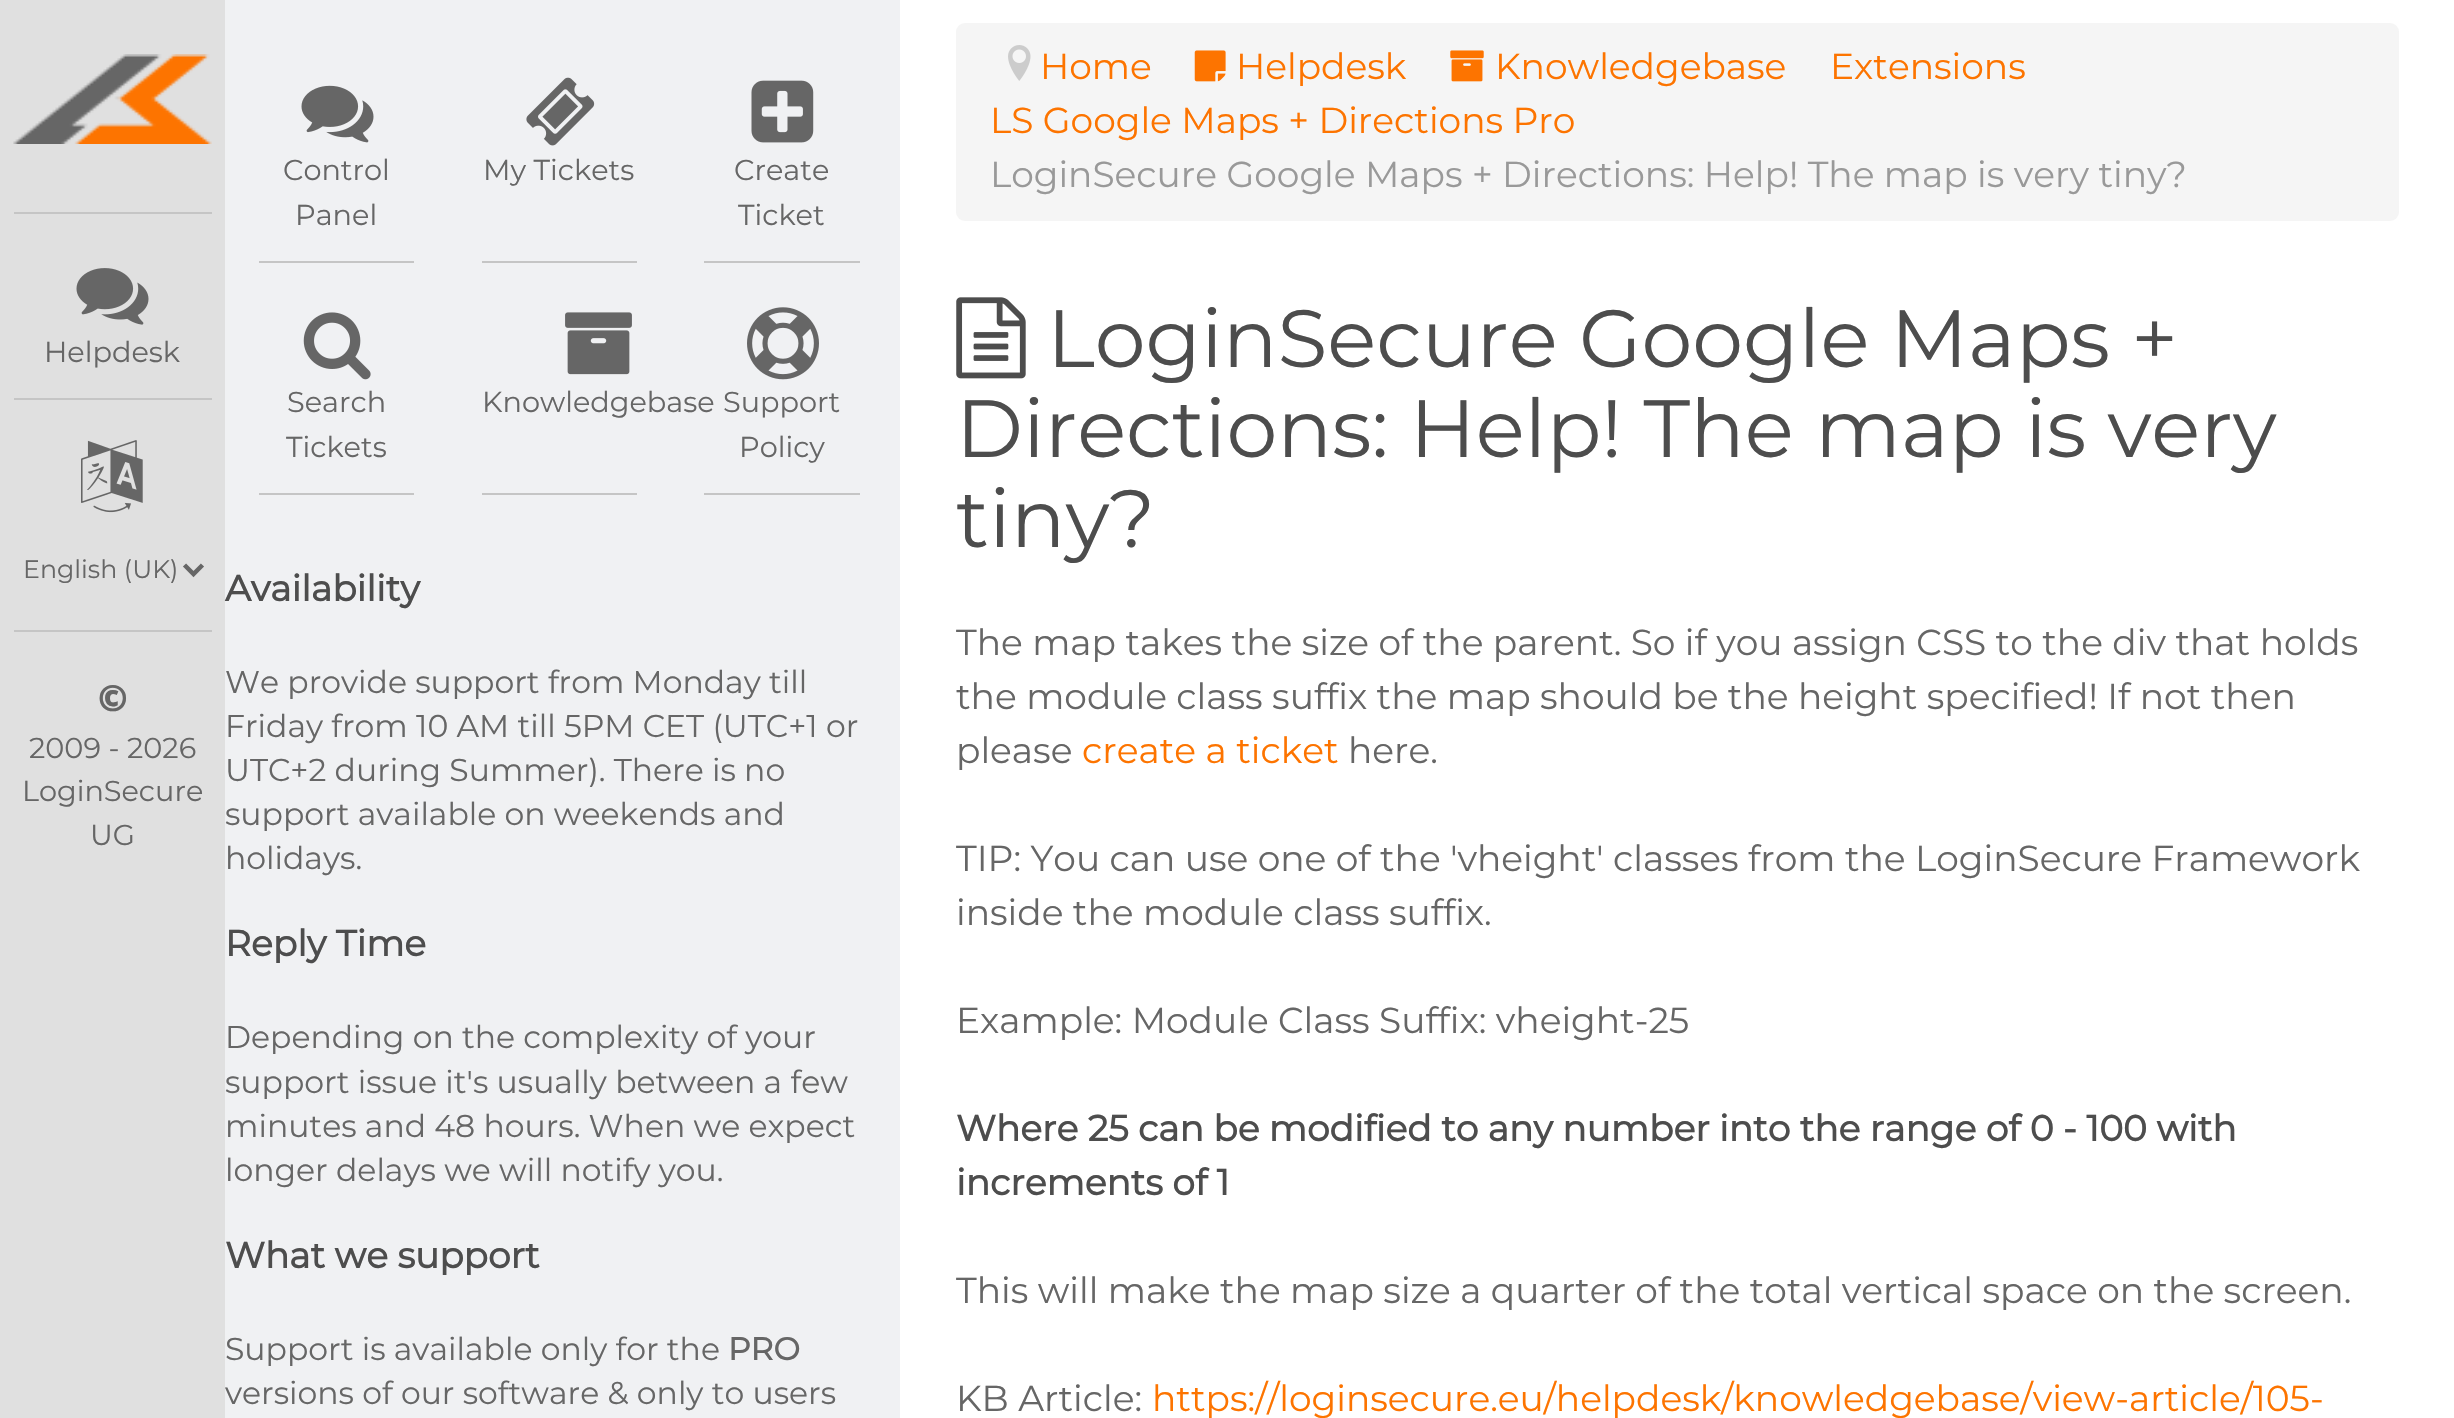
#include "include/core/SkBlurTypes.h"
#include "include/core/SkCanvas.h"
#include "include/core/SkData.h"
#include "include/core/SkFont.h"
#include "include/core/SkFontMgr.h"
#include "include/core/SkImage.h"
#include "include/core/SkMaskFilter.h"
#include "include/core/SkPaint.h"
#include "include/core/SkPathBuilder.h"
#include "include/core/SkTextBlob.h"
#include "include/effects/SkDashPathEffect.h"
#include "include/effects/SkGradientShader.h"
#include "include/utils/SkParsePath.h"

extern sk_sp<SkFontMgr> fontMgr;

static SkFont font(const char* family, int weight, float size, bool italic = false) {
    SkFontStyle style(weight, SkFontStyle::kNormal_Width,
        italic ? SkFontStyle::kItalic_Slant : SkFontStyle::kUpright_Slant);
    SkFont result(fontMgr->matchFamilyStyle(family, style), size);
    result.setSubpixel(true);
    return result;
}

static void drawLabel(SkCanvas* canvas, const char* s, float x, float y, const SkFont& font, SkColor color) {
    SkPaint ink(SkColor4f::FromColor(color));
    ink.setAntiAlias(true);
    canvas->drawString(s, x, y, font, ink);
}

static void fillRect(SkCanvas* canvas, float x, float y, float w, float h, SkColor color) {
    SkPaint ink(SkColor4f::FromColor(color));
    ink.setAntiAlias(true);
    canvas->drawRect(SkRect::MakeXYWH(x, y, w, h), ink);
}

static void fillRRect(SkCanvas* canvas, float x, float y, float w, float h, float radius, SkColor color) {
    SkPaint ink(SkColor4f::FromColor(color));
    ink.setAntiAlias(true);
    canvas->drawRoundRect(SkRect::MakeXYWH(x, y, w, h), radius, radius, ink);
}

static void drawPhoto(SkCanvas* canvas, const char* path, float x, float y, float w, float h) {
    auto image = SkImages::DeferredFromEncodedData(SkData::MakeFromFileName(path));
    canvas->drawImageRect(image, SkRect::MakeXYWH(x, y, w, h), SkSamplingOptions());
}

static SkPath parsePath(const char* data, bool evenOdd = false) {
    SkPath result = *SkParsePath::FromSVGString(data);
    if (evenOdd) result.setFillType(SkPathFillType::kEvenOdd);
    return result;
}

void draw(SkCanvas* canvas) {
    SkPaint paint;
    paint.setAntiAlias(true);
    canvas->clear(0xFFFFFFFF);
    fillRect(canvas, 0, 0, 225, 1418, 0xFFE0E0E0);
    fillRect(canvas, 14, 212, 198, 2, 0xFFC5C5C5);
    drawPhoto(canvas, "assets/img1.png", 13, 54, 199, 90);
    fillRect(canvas, 14, 398, 198, 2, 0xFFC5C5C5);
    drawPhoto(canvas, "assets/img2.png", 76, 268, 73, 57);
    SkFont font1 = font("Montserrat", 100, 28.75f);
    drawLabel(canvas, "Helpdesk", 44, 362, font1, 0xFF666666);
    fillRect(canvas, 14, 630, 198, 2, 0xFFC5C5C5);
    drawPhoto(canvas, "assets/img3.png", 81, 440, 62, 73);
    paint.setStroke(true);
    paint.setStrokeWidth(4.5f);
    paint.setColor(0xFF666666);
    canvas->drawPath(parsePath("M184.5 565L193.5 574L202.5 565"), paint);
    SkFont font2 = font("Montserrat", 100, 25.25f);
    drawLabel(canvas, "English (UK)", 23, 578, font2, 0xFF666666);
    SkFont font3 = font("Noto Sans", 900, 36);
    drawLabel(canvas, "©", 98, 711, font3, 0xFF666666);
    drawLabel(canvas, "2009 - 2026", 29, 758, font1, 0xFF666666);
    drawLabel(canvas, "LoginSecure", 22, 801, font1, 0xFF666666);
    drawLabel(canvas, "UG", 90, 845, font1, 0xFF666666);
    fillRect(canvas, 225, 0, 675, 1418, 0xFFF0F1F3);
    fillRect(canvas, 259, 261, 155, 2, 0xFFC5C5C5);
    drawPhoto(canvas, "assets/img4.png", 301, 85, 73, 58);
    drawLabel(canvas, "Control", 283, 180, font1, 0xFF666666);
    drawLabel(canvas, "Panel", 295, 225, font1, 0xFF666666);
    fillRect(canvas, 482, 261, 155, 2, 0xFFC5C5C5);
    drawPhoto(canvas, "assets/img5.png", 526, 77, 69, 69);
    drawLabel(canvas, "My Tickets", 483, 180, font1, 0xFF666666);
    fillRect(canvas, 704, 261, 156, 2, 0xFFC5C5C5);
    drawPhoto(canvas, "assets/img6.png", 751, 80, 63, 63);
    drawLabel(canvas, "Create", 734, 180, font1, 0xFF666666);
    drawLabel(canvas, "Ticket", 738, 225, font1, 0xFF666666);
    fillRect(canvas, 259, 493, 155, 2, 0xFFC5C5C5);
    drawPhoto(canvas, "assets/img7.png", 303, 312, 68, 68);
    drawLabel(canvas, "Search", 287, 412, font1, 0xFF666666);
    drawLabel(canvas, "Tickets", 286, 457, font1, 0xFF666666);
    fillRect(canvas, 482, 493, 155, 2, 0xFFC5C5C5);
    drawPhoto(canvas, "assets/img8.png", 565, 312, 67, 63);
    drawLabel(canvas, "Knowledgebase", 482, 412, font1, 0xFF666666);
    fillRect(canvas, 704, 493, 156, 2, 0xFFC5C5C5);
    drawPhoto(canvas, "assets/img9.png", 747, 307, 72, 73);
    drawLabel(canvas, "Support", 723, 412, font1, 0xFF666666);
    drawLabel(canvas, "Policy", 739, 457, font1, 0xFF666666);
    SkFont font4 = font("Montserrat", 700, 36);
    drawLabel(canvas, "Availability", 225, 601, font4, 0xFF4D4D4D);
    SkFont font5 = font("Montserrat", 100, 31.5f);
    drawLabel(canvas, "We provide support from Monday till", 225, 693, font5, 0xFF666666);
    drawLabel(canvas, "Friday from 10 AM till 5PM CET (UTC+1 or", 225, 737, font5, 0xFF666666);
    drawLabel(canvas, "UTC+2 during Summer). There is no", 225, 781, font5, 0xFF666666);
    drawLabel(canvas, "support available on weekends and", 225, 825, font5, 0xFF666666);
    drawLabel(canvas, "holidays.", 225, 869, font5, 0xFF666666);
    drawLabel(canvas, "Reply Time", 225, 956, font4, 0xFF4D4D4D);
    drawLabel(canvas, "Depending on the complexity of your", 225, 1048, font5, 0xFF666666);
    drawLabel(canvas, "support issue it's usually between a few", 225, 1093, font5, 0xFF666666);
    drawLabel(canvas, "minutes and 48 hours. When we expect", 225, 1137, font5, 0xFF666666);
    drawLabel(canvas, "longer delays we will notify you.", 225, 1181, font5, 0xFF666666);
    drawLabel(canvas, "What we support", 225, 1268, font4, 0xFF4D4D4D);
    drawLabel(canvas, "Support is available only for the", 225, 1360, font5, 0xFF666666);
    SkFont font6 = font("Montserrat", 700, 31.5f);
    drawLabel(canvas, "PRO", 728, 1360, font6, 0xFF666666);
    drawLabel(canvas, "versions of our software & only to users", 225, 1404, font5, 0xFF666666);
    fillRRect(canvas, 956, 23, 1443, 198, 9, 0xFFF5F5F5);
    drawPhoto(canvas, "assets/img10.png", 1008, 45, 23, 36);
    SkFont font7 = font("Montserrat", 100, 36);
    drawLabel(canvas, "Home", 1040, 79, font7, 0xFFFD7400);
    drawPhoto(canvas, "assets/img11.png", 1194, 50, 32, 32);
    drawLabel(canvas, "Helpdesk", 1236, 79, font7, 0xFFFD7400);
    drawPhoto(canvas, "assets/img12.png", 1450, 50, 34, 32);
    drawLabel(canvas, "Knowledgebase", 1495, 79, font7, 0xFFFD7400);
    drawLabel(canvas, "Extensions", 1830, 79, font7, 0xFFFD7400);
    drawLabel(canvas, "LS Google Maps + Directions Pro", 990, 133, font7, 0xFFFD7400);
    drawLabel(canvas, "LoginSecure Google Maps + Directions: Help! The map is very tiny?", 990, 187, font7, 0xFF999999);
    drawPhoto(canvas, "assets/img13.png", 956, 297, 70, 82);
    SkFont font8 = font("Montserrat", 100, 81);
    drawLabel(canvas, "LoginSecure Google Maps +", 1047, 367, font8, 0xFF4D4D4D);
    drawLabel(canvas, "Directions: Help! The map is very", 956, 457, font8, 0xFF4D4D4D);
    drawLabel(canvas, "tiny?", 956, 547, font8, 0xFF4D4D4D);
    drawLabel(canvas, "The map takes the size of the parent. So if you assign CSS to the div that holds", 956, 655, font7, 0xFF666666);
    drawLabel(canvas, "the module class suffix the map should be the height specified! If not then", 956, 709, font7, 0xFF666666);
    drawLabel(canvas, "please", 956, 763, font7, 0xFF666666);
    drawLabel(canvas, "create a ticket", 1082, 763, font7, 0xFFFD7400);
    drawLabel(canvas, "here.", 1348, 763, font7, 0xFF666666);
    drawLabel(canvas, "TIP: You can use one of the 'vheight' classes from the LoginSecure Framework", 956, 871, font7, 0xFF666666);
    drawLabel(canvas, "inside the module class suffix.", 956, 925, font7, 0xFF666666);
    drawLabel(canvas, "Example: Module Class Suffix: vheight-25", 956, 1033, font7, 0xFF666666);
    drawLabel(canvas, "Where 25 can be modified to any number into the range of 0 - 100 with", 956, 1141, font4, 0xFF4D4D4D);
    drawLabel(canvas, "increments of 1", 956, 1195, font4, 0xFF4D4D4D);
    drawLabel(canvas, "This will make the map size a quarter of the total vertical space on the screen.", 956, 1303, font7, 0xFF666666);
    drawLabel(canvas, "KB Article:", 956, 1411, font7, 0xFF666666);
    drawLabel(canvas, "https://loginsecure.eu/helpdesk/knowledgebase/view-article/105-", 1152, 1411, font7, 0xFFFD7400);
}
